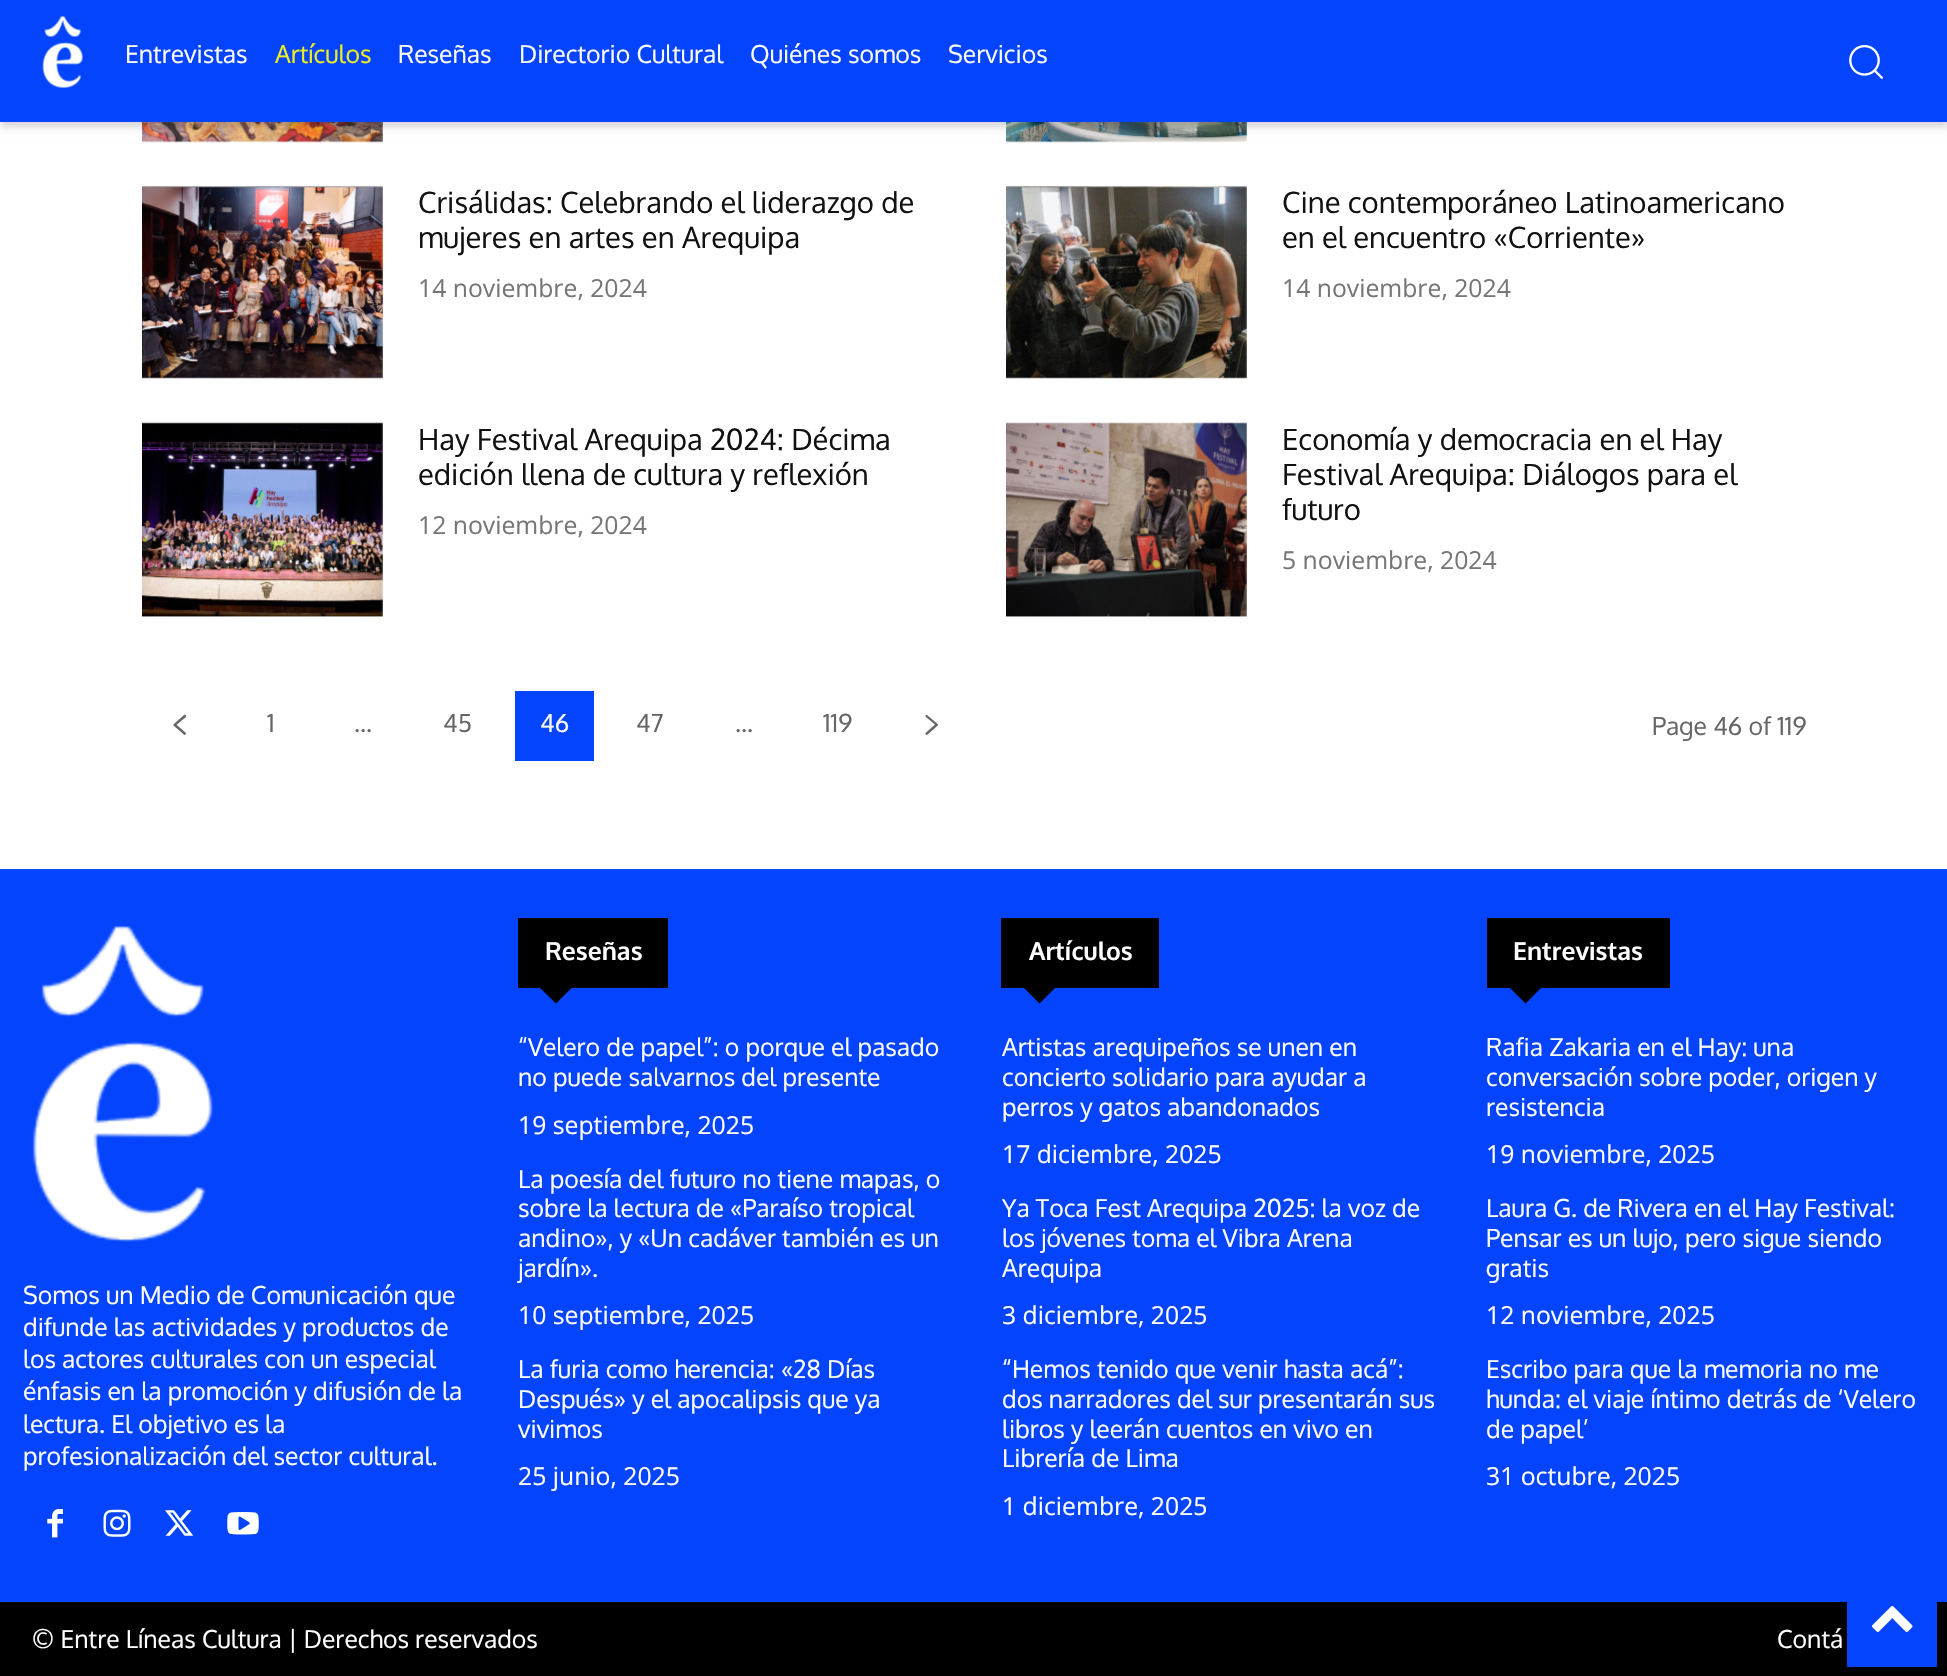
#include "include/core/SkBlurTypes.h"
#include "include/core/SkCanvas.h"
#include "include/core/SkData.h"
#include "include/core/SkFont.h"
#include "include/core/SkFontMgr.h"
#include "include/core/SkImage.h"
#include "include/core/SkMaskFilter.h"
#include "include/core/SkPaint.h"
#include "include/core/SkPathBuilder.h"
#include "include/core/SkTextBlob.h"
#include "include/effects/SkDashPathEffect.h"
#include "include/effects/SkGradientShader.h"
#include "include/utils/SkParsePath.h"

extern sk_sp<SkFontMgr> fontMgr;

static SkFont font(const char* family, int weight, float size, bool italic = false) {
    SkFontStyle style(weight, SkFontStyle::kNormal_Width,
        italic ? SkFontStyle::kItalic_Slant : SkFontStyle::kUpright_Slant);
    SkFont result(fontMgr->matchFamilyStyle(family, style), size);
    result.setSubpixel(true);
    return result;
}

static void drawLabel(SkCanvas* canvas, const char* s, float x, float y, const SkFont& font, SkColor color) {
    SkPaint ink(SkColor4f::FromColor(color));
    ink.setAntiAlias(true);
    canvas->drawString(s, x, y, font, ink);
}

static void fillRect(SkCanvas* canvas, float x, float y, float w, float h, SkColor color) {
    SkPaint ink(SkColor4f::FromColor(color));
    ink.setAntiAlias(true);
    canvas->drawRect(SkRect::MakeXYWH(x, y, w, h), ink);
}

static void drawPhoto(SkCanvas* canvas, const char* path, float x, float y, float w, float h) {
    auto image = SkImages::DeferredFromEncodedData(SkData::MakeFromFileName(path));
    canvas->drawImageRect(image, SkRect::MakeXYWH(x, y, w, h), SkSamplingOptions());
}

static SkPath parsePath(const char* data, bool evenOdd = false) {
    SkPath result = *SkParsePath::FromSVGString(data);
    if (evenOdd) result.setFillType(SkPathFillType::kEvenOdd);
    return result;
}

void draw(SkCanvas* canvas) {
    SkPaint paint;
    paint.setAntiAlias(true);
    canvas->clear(0xFFFFFFFF);
    fillRect(canvas, 0, 0, 1947, 122, 0xFF0444FD);
    drawPhoto(canvas, "assets/img1.png", 42, 16, 41, 72);
    drawPhoto(canvas, "assets/img3.png", 142, 122, 241, 21);
    drawPhoto(canvas, "assets/img4.png", 1006, 122, 241, 21);
    canvas->save();
    canvas->clipPath(parsePath("M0 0H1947V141H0ZM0 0H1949V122H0Z", true), true);
    paint.setColor(0x33000000);
    paint.setMaskFilter(SkMaskFilter::MakeBlur(kNormal_SkBlurStyle, 4.5f));
    canvas->drawRect(SkRect::MakeXYWH(0, 5, 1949, 121), paint);
    paint.setMaskFilter(nullptr);
    canvas->restore();
    SkFont font1 = font("Oxygen", 400, 24.75f);
    drawLabel(canvas, "Entrevistas", 125, 63, font1, 0xFFFFFFFF);
    drawLabel(canvas, "Artículos", 275, 63, font1, 0xFFEEEE22);
    drawLabel(canvas, "Reseñas", 398, 63, font1, 0xFFFFFFFF);
    drawLabel(canvas, "Directorio Cultural", 519, 63, font1, 0xFFFFFFFF);
    drawLabel(canvas, "Quiénes somos", 750, 63, font1, 0xFFFFFFFF);
    drawLabel(canvas, "Servicios", 948, 63, font1, 0xFFFFFFFF);
    drawPhoto(canvas, "assets/img2.png", 1849, 45, 34, 34);
    drawPhoto(canvas, "assets/img5.png", 142, 186, 241, 193);
    SkFont font2 = font("Oxygen", 400, 29.25f);
    drawLabel(canvas, "Crisálidas: Celebrando el liderazgo de", 418, 213, font2, 0xFF111111);
    drawLabel(canvas, "mujeres en artes en Arequipa", 418, 248, font2, 0xFF111111);
    SkFont font3 = font("Open Sans", 400, 24.75f);
    drawLabel(canvas, "14 noviembre, 2024", 418, 297, font3, 0xFF767676);
    drawPhoto(canvas, "assets/img6.png", 1006, 186, 241, 193);
    drawLabel(canvas, "Cine contemporáneo Latinoamericano", 1282, 213, font2, 0xFF111111);
    drawLabel(canvas, "en el encuentro «Corriente»", 1282, 248, font2, 0xFF111111);
    drawLabel(canvas, "14 noviembre, 2024", 1282, 297, font3, 0xFF767676);
    drawPhoto(canvas, "assets/img7.png", 142, 422, 241, 195);
    drawLabel(canvas, "Hay Festival Arequipa 2024: Décima", 418, 450, font2, 0xFF111111);
    drawLabel(canvas, "edición llena de cultura y reflexión", 418, 485, font2, 0xFF111111);
    drawLabel(canvas, "12 noviembre, 2024", 418, 534, font3, 0xFF767676);
    drawPhoto(canvas, "assets/img8.png", 1006, 422, 241, 195);
    drawLabel(canvas, "Economía y democracia en el Hay", 1282, 450, font2, 0xFF111111);
    drawLabel(canvas, "Festival Arequipa: Diálogos para el", 1282, 485, font2, 0xFF111111);
    drawLabel(canvas, "futuro", 1282, 520, font2, 0xFF111111);
    drawLabel(canvas, "5 noviembre, 2024", 1282, 569, font3, 0xFF767676);
    drawPhoto(canvas, "assets/img9.png", 173, 714, 14, 21);
    drawLabel(canvas, "1", 267, 732, font1, 0xFF666666);
    drawLabel(canvas, "...", 354, 732, font1, 0xFF666666);
    drawLabel(canvas, "45", 443, 732, font1, 0xFF666666);
    fillRect(canvas, 515, 691, 79, 70, 0xFF0444FD);
    drawLabel(canvas, "46", 540, 732, font1, 0xFFFFFFFF);
    drawLabel(canvas, "47", 636, 732, font1, 0xFF666666);
    drawLabel(canvas, "...", 735, 732, font1, 0xFF666666);
    drawLabel(canvas, "119", 823, 732, font1, 0xFF666666);
    drawPhoto(canvas, "assets/img10.png", 925, 714, 14, 21);
    drawLabel(canvas, "Page 46 of 119", 1652, 735, font1, 0xFF666666);
    fillRect(canvas, 0, 869, 1947, 733, 0xFF0444FD);
    drawPhoto(canvas, "assets/img11.png", 32, 926, 181, 316);
    drawLabel(canvas, "Somos un Medio de Comunicación que", 23, 1304, font1, 0xFFFFFFFF);
    drawLabel(canvas, "difunde las actividades y productos de", 23, 1336, font1, 0xFFFFFFFF);
    drawLabel(canvas, "los actores culturales con un especial", 23, 1368, font1, 0xFFFFFFFF);
    drawLabel(canvas, "énfasis en la promoción y difusión de la", 23, 1400, font1, 0xFFFFFFFF);
    drawLabel(canvas, "lectura. El objetivo es la", 23, 1433, font1, 0xFFFFFFFF);
    drawLabel(canvas, "profesionalización del sector cultural.", 23, 1465, font1, 0xFFFFFFFF);
    drawPhoto(canvas, "assets/img12.png", 47, 1509, 16, 29);
    drawPhoto(canvas, "assets/img13.png", 103, 1509, 28, 28);
    drawPhoto(canvas, "assets/img14.png", 165, 1510, 29, 26);
    drawPhoto(canvas, "assets/img15.png", 227, 1512, 32, 23);
    fillRect(canvas, 518, 918, 150, 70, 0xFF000000);
    SkFont font4 = font("Oxygen", 700, 24.75f);
    drawLabel(canvas, "Reseñas", 545, 960, font4, 0xFFFFFFFF);
    paint.setColor(0xFF000000);
    canvas->drawPath(parsePath("M540 988H571.5L556 1003.5Z"), paint);
    drawLabel(canvas, "“Velero de papel”: o porque el pasado", 518, 1056, font1, 0xFFFFFFFF);
    drawLabel(canvas, "no puede salvarnos del presente", 518, 1086, font1, 0xFFFFFFFF);
    drawLabel(canvas, "19 septiembre, 2025", 518, 1134, font3, 0xFFFFFFFF);
    drawLabel(canvas, "La poesía del futuro no tiene mapas, o", 518, 1188, font1, 0xFFFFFFFF);
    drawLabel(canvas, "sobre la lectura de «Paraíso tropical", 518, 1217, font1, 0xFFFFFFFF);
    drawLabel(canvas, "andino», y «Un cadáver también es un", 518, 1247, font1, 0xFFFFFFFF);
    drawLabel(canvas, "jardín».", 518, 1277, font1, 0xFFFFFFFF);
    drawLabel(canvas, "10 septiembre, 2025", 518, 1324, font3, 0xFFFFFFFF);
    drawLabel(canvas, "La furia como herencia: «28 Días", 518, 1378, font1, 0xFFFFFFFF);
    drawLabel(canvas, "Después» y el apocalipsis que ya", 518, 1408, font1, 0xFFFFFFFF);
    drawLabel(canvas, "vivimos", 518, 1438, font1, 0xFFFFFFFF);
    drawLabel(canvas, "25 junio, 2025", 518, 1485, font3, 0xFFFFFFFF);
    fillRect(canvas, 1001, 918, 158, 70, 0xFF000000);
    drawLabel(canvas, "Artículos", 1029, 960, font4, 0xFFFFFFFF);
    canvas->drawPath(parsePath("M1024 988H1055L1039.5 1003.5Z"), paint);
    drawLabel(canvas, "Artistas arequipeños se unen en", 1002, 1056, font1, 0xFFFFFFFF);
    drawLabel(canvas, "concierto solidario para ayudar a", 1002, 1086, font1, 0xFFFFFFFF);
    drawLabel(canvas, "perros y gatos abandonados", 1002, 1116, font1, 0xFFFFFFFF);
    drawLabel(canvas, "17 diciembre, 2025", 1002, 1163, font3, 0xFFFFFFFF);
    drawLabel(canvas, "Ya Toca Fest Arequipa 2025: la voz de", 1002, 1217, font1, 0xFFFFFFFF);
    drawLabel(canvas, "los jóvenes toma el Vibra Arena", 1002, 1247, font1, 0xFFFFFFFF);
    drawLabel(canvas, "Arequipa", 1002, 1277, font1, 0xFFFFFFFF);
    drawLabel(canvas, "3 diciembre, 2025", 1002, 1324, font3, 0xFFFFFFFF);
    drawLabel(canvas, "“Hemos tenido que venir hasta acá”:", 1002, 1378, font1, 0xFFFFFFFF);
    drawLabel(canvas, "dos narradores del sur presentarán sus", 1002, 1408, font1, 0xFFFFFFFF);
    drawLabel(canvas, "libros y leerán cuentos en vivo en", 1002, 1438, font1, 0xFFFFFFFF);
    drawLabel(canvas, "Librería de Lima", 1002, 1467, font1, 0xFFFFFFFF);
    drawLabel(canvas, "1 diciembre, 2025", 1002, 1515, font3, 0xFFFFFFFF);
    fillRect(canvas, 1487, 918, 183, 70, 0xFF000000);
    drawLabel(canvas, "Entrevistas", 1513, 960, font4, 0xFFFFFFFF);
    canvas->drawPath(parsePath("M1510 988H1541L1525.5 1003.5Z"), paint);
    drawLabel(canvas, "Rafia Zakaria en el Hay: una", 1486, 1056, font1, 0xFFFFFFFF);
    drawLabel(canvas, "conversación sobre poder, origen y", 1486, 1086, font1, 0xFFFFFFFF);
    drawLabel(canvas, "resistencia", 1486, 1116, font1, 0xFFFFFFFF);
    drawLabel(canvas, "19 noviembre, 2025", 1486, 1163, font3, 0xFFFFFFFF);
    drawLabel(canvas, "Laura G. de Rivera en el Hay Festival:", 1486, 1217, font1, 0xFFFFFFFF);
    drawLabel(canvas, "Pensar es un lujo, pero sigue siendo", 1486, 1247, font1, 0xFFFFFFFF);
    drawLabel(canvas, "gratis", 1486, 1277, font1, 0xFFFFFFFF);
    drawLabel(canvas, "12 noviembre, 2025", 1486, 1324, font3, 0xFFFFFFFF);
    drawLabel(canvas, "Escribo para que la memoria no me", 1486, 1378, font1, 0xFFFFFFFF);
    drawLabel(canvas, "hunda: el viaje íntimo detrás de ‘Velero", 1486, 1408, font1, 0xFFFFFFFF);
    drawLabel(canvas, "de papel’", 1486, 1438, font1, 0xFFFFFFFF);
    drawLabel(canvas, "31 octubre, 2025", 1486, 1485, font3, 0xFFFFFFFF);
    fillRect(canvas, 0, 1602, 1947, 74, 0xFF000000);
    drawLabel(canvas, "© Entre Líneas Cultura | Derechos reservados", 32, 1648, font1, 0xFFFFFFFF);
    drawLabel(canvas, "Contá", 1777, 1648, font1, 0xFFFFFFFF);
    fillRect(canvas, 1847, 1602, 90, 65, 0xFF0444FD);
    drawPhoto(canvas, "assets/img16.png", 1872, 1606, 41, 26);
}
